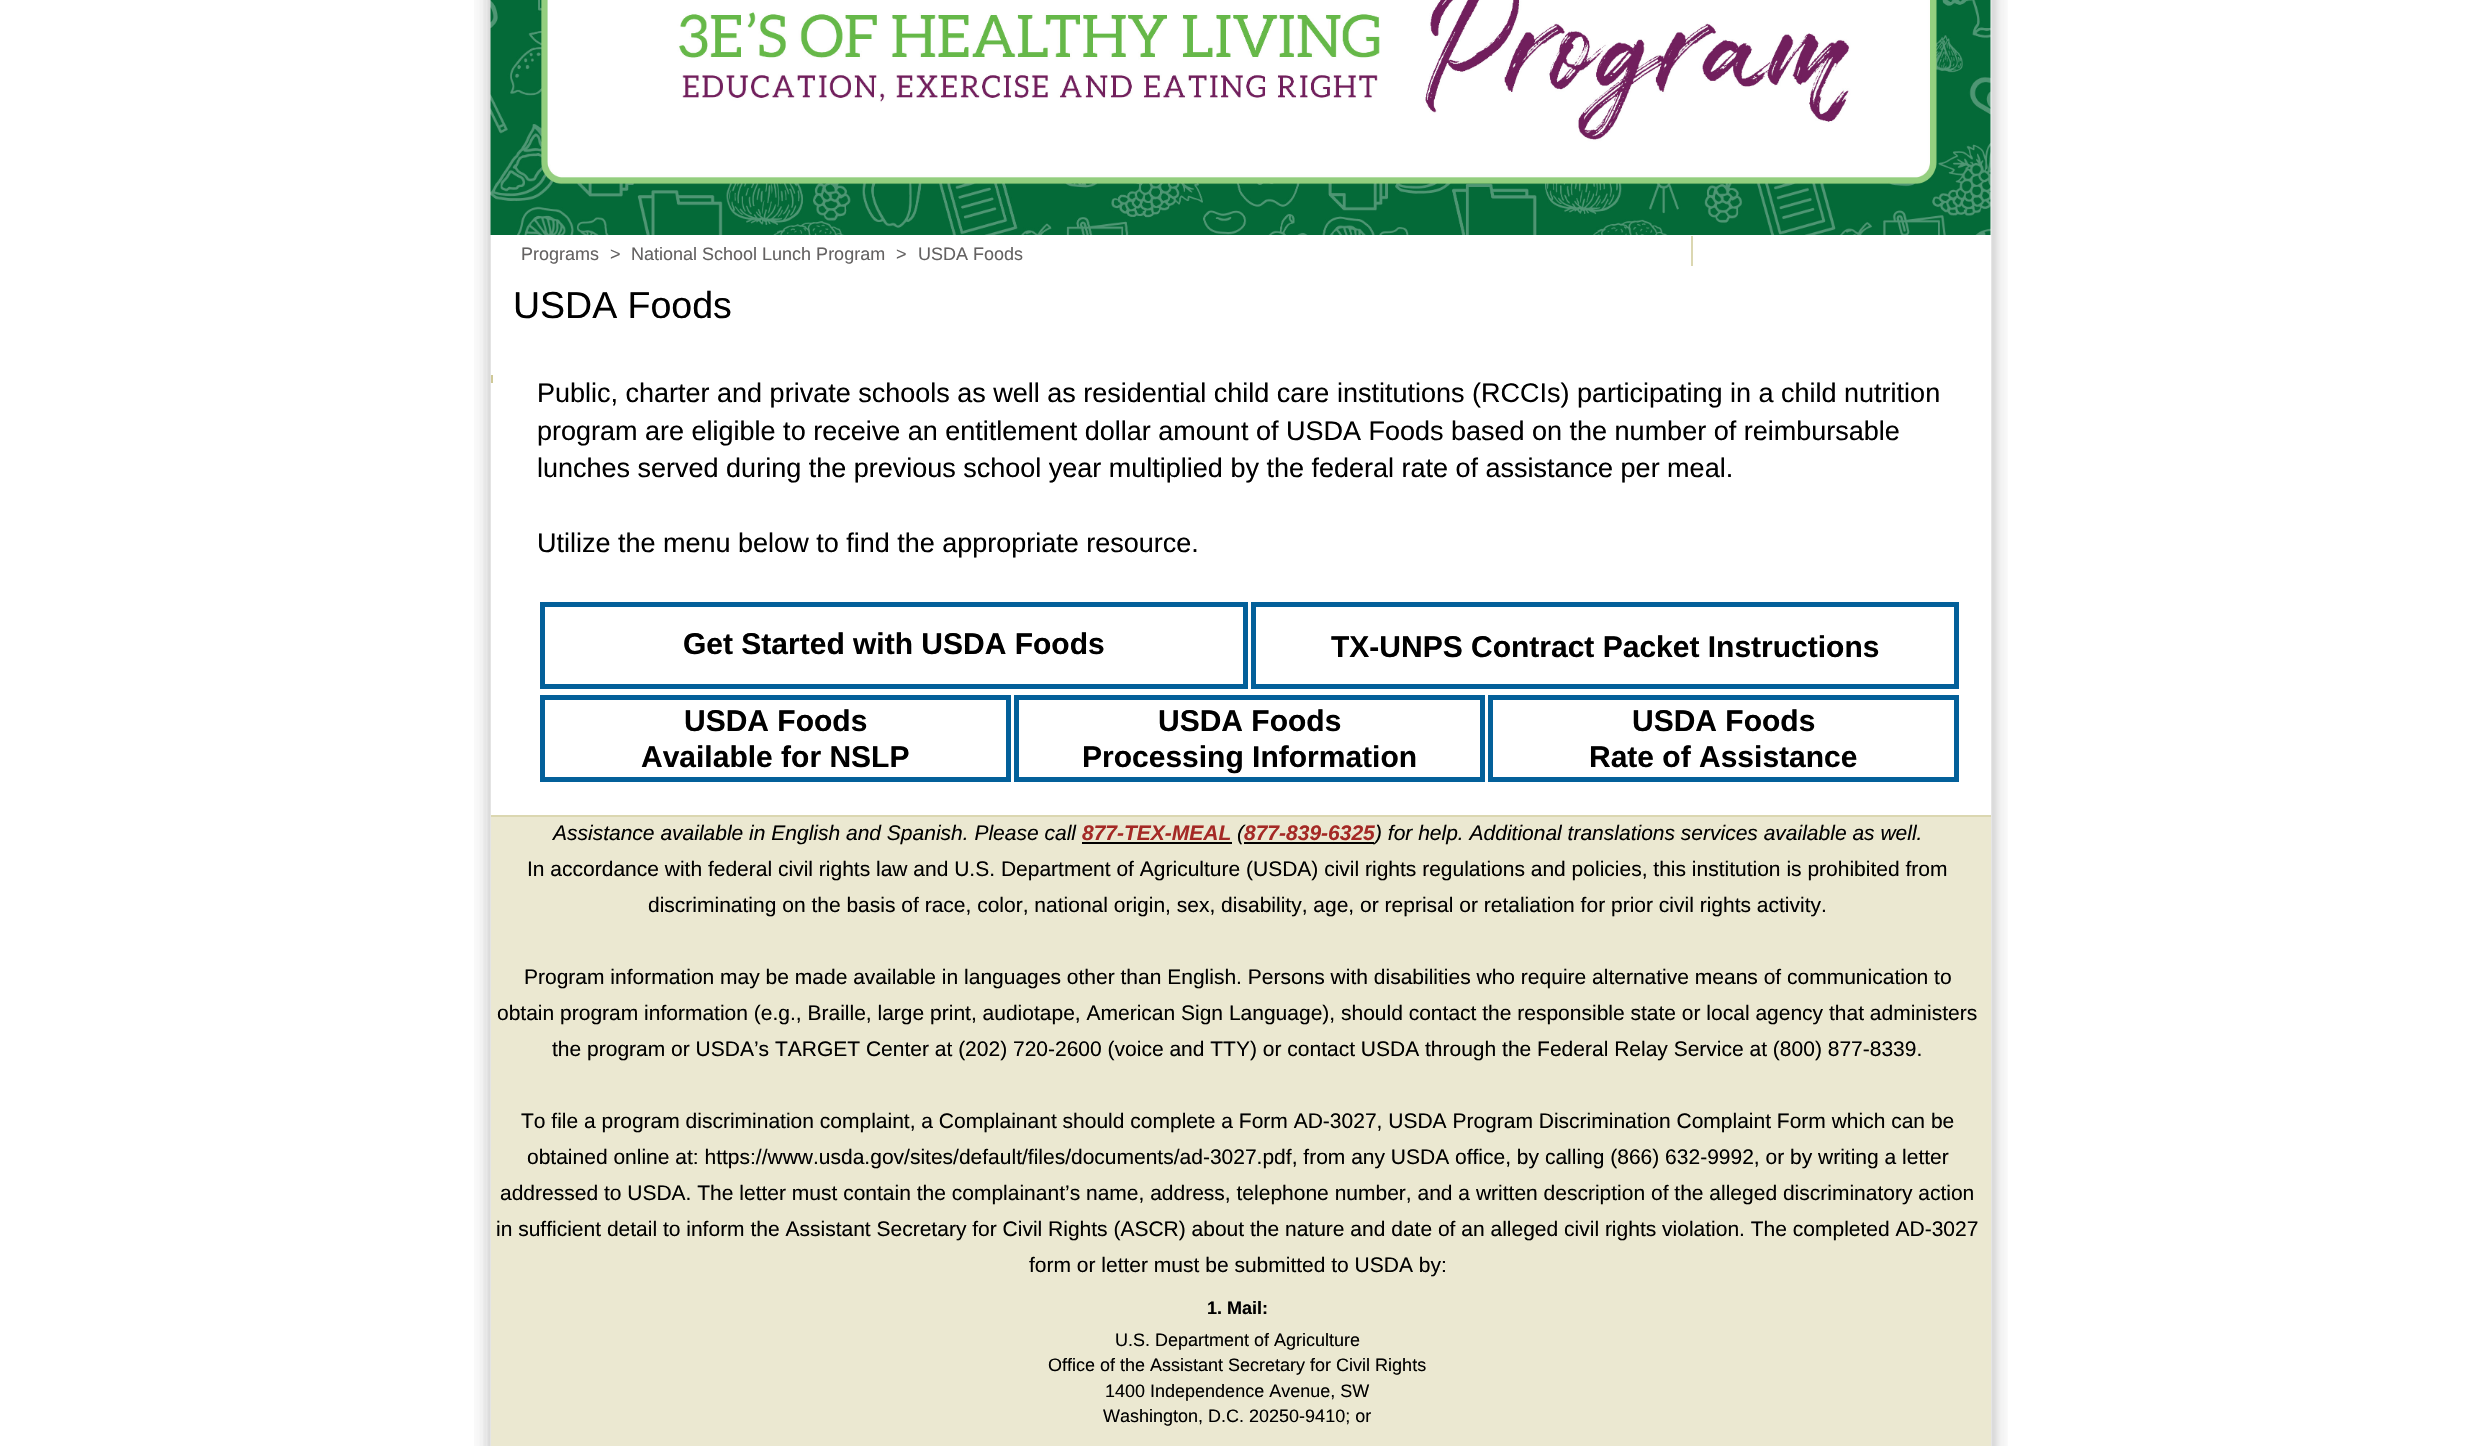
#include "include/core/SkBlurTypes.h"
#include "include/core/SkCanvas.h"
#include "include/core/SkData.h"
#include "include/core/SkFont.h"
#include "include/core/SkFontMgr.h"
#include "include/core/SkImage.h"
#include "include/core/SkMaskFilter.h"
#include "include/core/SkPaint.h"
#include "include/core/SkPathBuilder.h"
#include "include/core/SkTextBlob.h"
#include "include/effects/SkDashPathEffect.h"
#include "include/effects/SkGradientShader.h"
#include "include/utils/SkParsePath.h"

extern sk_sp<SkFontMgr> fontMgr;

static SkFont font(const char* family, int weight, float size, bool italic = false) {
    SkFontStyle style(weight, SkFontStyle::kNormal_Width,
        italic ? SkFontStyle::kItalic_Slant : SkFontStyle::kUpright_Slant);
    SkFont result(fontMgr->matchFamilyStyle(family, style), size);
    result.setSubpixel(true);
    return result;
}

static void drawLabel(SkCanvas* canvas, const char* s, float x, float y, const SkFont& font, SkColor color) {
    SkPaint ink(SkColor4f::FromColor(color));
    ink.setAntiAlias(true);
    canvas->drawString(s, x, y, font, ink);
}

static void fillRect(SkCanvas* canvas, float x, float y, float w, float h, SkColor color) {
    SkPaint ink(SkColor4f::FromColor(color));
    ink.setAntiAlias(true);
    canvas->drawRect(SkRect::MakeXYWH(x, y, w, h), ink);
}

static void drawPhoto(SkCanvas* canvas, const char* path, float x, float y, float w, float h) {
    auto image = SkImages::DeferredFromEncodedData(SkData::MakeFromFileName(path));
    canvas->drawImageRect(image, SkRect::MakeXYWH(x, y, w, h), SkSamplingOptions());
}

void draw(SkCanvas* canvas) {
    SkPaint paint;
    paint.setAntiAlias(true);
    canvas->clear(0xFFFFFFFF);
    drawPhoto(canvas, "assets/img1.png", 474, 0, 1534, 1446);
    fillRect(canvas, 491, 0, 1500, 815, 0xFFFFFFFF);
    drawPhoto(canvas, "assets/img2.png", 490, 0, 1501, 235);
    fillRect(canvas, 1691, 236, 2, 30, 0xFFDBD7B1);
    SkFont font1 = font("Liberation Sans", 400, 18);
    drawLabel(canvas, "Programs", 521, 260, font1, 0xFF646262);
    drawLabel(canvas, ">", 610, 260, font1, 0xFF646262);
    drawLabel(canvas, "National School Lunch Program", 631, 260, font1, 0xFF646262);
    drawLabel(canvas, ">", 896, 260, font1, 0xFF646262);
    drawLabel(canvas, "USDA Foods", 918, 260, font1, 0xFF646262);
    SkFont font2 = font("Liberation Sans", 400, 37.5f);
    drawLabel(canvas, "USDA Foods", 513, 318, font2, 0xFF000000);
    fillRect(canvas, 491, 375, 2, 8, 0xFFCFC997);
    SkFont font3 = font("Liberation Sans", 400, 27);
    drawLabel(canvas, "Public, charter and private schools as well as residential child care institutions (RCCIs) participating in a child nutrition", 537, 402, font3, 0xFF000000);
    drawLabel(canvas, "program are eligible to receive an entitlement dollar amount of USDA Foods based on the number of reimbursable", 537, 440, font3, 0xFF000000);
    drawLabel(canvas, "lunches served during the previous school year multiplied by the federal rate of assistance per meal.", 537, 477, font3, 0xFF000000);
    drawLabel(canvas, "Utilize the menu below to find the appropriate resource.", 537, 552, font3, 0xFF000000);
    paint.setStroke(true);
    paint.setStrokeWidth(5);
    paint.setColor(0xFF03609A);
    canvas->drawRect(SkRect::MakeXYWH(542.5f, 604.5f, 703, 82), paint);
    SkFont font4 = font("Liberation Sans", 700, 30);
    drawLabel(canvas, "Get Started with USDA Foods", 683, 654, font4, 0xFF000000);
    canvas->drawRect(SkRect::MakeXYWH(1253.5f, 604.5f, 703, 82), paint);
    drawLabel(canvas, "TX-UNPS Contract Packet Instructions", 1331, 657, font4, 0xFF000000);
    canvas->drawRect(SkRect::MakeXYWH(542.5f, 697.5f, 466, 82), paint);
    drawLabel(canvas, "USDA Foods", 684, 731, font4, 0xFF000000);
    drawLabel(canvas, "Available for NSLP", 641, 767, font4, 0xFF000000);
    canvas->drawRect(SkRect::MakeXYWH(1016.5f, 697.5f, 466, 82), paint);
    drawLabel(canvas, "USDA Foods", 1158, 731, font4, 0xFF000000);
    drawLabel(canvas, "Processing Information", 1082, 767, font4, 0xFF000000);
    canvas->drawRect(SkRect::MakeXYWH(1490.5f, 697.5f, 466, 82), paint);
    drawLabel(canvas, "USDA Foods", 1632, 731, font4, 0xFF000000);
    drawLabel(canvas, "Rate of Assistance", 1589, 767, font4, 0xFF000000);
    fillRect(canvas, 491, 817, 1500, 629, 0xFFEBE8D1);
    fillRect(canvas, 491, 815, 1500, 2, 0xFFDBD7B1);
    SkFont font5 = font("Liberation Sans", 400, 21, true);
    drawLabel(canvas, "Assistance available in English and Spanish. Please call", 553, 840, font5, 0xFF000000);
    SkFont font6 = font("Liberation Sans", 700, 21, true);
    drawLabel(canvas, "877-TEX-MEAL", 1082, 840, font6, 0xFFA42925);
    fillRect(canvas, 1082, 842, 150, 2, 0xFF000000);
    drawLabel(canvas, "(", 1237, 840, font5, 0xFF000000);
    fillRect(canvas, 1244, 842, 130, 2, 0xFF000000);
    drawLabel(canvas, "877-839-6325", 1244, 840, font6, 0xFFA42925);
    drawLabel(canvas, ") for help. Additional translations services available as well.", 1375, 840, font5, 0xFF000000);
    SkFont font7 = font("Liberation Sans", 400, 21);
    drawLabel(canvas, "In accordance with federal civil rights law and U.S. Department of Agriculture (USDA) civil rights regulations and policies, this institution is prohibited from", 527, 876, font7, 0xFF000000);
    drawLabel(canvas, "discriminating on the basis of race, color, national origin, sex, disability, age, or reprisal or retaliation for prior civil rights activity.", 648, 912, font7, 0xFF000000);
    drawLabel(canvas, "Program information may be made available in languages other than English. Persons with disabilities who require alternative means of communication to", 524, 984, font7, 0xFF000000);
    drawLabel(canvas, "obtain program information (e.g., Braille, large print, audiotape, American Sign Language), should contact the responsible state or local agency that administers", 497, 1020, font7, 0xFF000000);
    drawLabel(canvas, "the program or USDA’s TARGET Center at (202) 720-2600 (voice and TTY) or contact USDA through the Federal Relay Service at (800) 877-8339.", 552, 1056, font7, 0xFF000000);
    drawLabel(canvas, "To file a program discrimination complaint, a Complainant should complete a Form AD-3027, USDA Program Discrimination Complaint Form which can be", 521, 1128, font7, 0xFF000000);
    drawLabel(canvas, "obtained online at: https://www.usda.gov/sites/default/files/documents/ad-3027.pdf, from any USDA office, by calling (866) 632-9992, or by writing a letter", 527, 1164, font7, 0xFF000000);
    drawLabel(canvas, "addressed to USDA. The letter must contain the complainant’s name, address, telephone number, and a written description of the alleged discriminatory action", 500, 1200, font7, 0xFF000000);
    drawLabel(canvas, "in sufficient detail to inform the Assistant Secretary for Civil Rights (ASCR) about the nature and date of an alleged civil rights violation. The completed AD-3027", 496, 1236, font7, 0xFF000000);
    drawLabel(canvas, "form or letter must be submitted to USDA by:", 1029, 1272, font7, 0xFF000000);
    SkFont font8 = font("Liberation Sans", 700, 18);
    drawLabel(canvas, "1. Mail:", 1207, 1314, font8, 0xFF000000);
    drawLabel(canvas, "U.S. Department of Agriculture", 1115, 1346, font1, 0xFF000000);
    drawLabel(canvas, "Office of the Assistant Secretary for Civil Rights", 1048, 1371, font1, 0xFF000000);
    drawLabel(canvas, "1400 Independence Avenue, SW", 1105, 1397, font1, 0xFF000000);
    drawLabel(canvas, "Washington, D.C. 20250-9410; or", 1103, 1422, font1, 0xFF000000);
}
